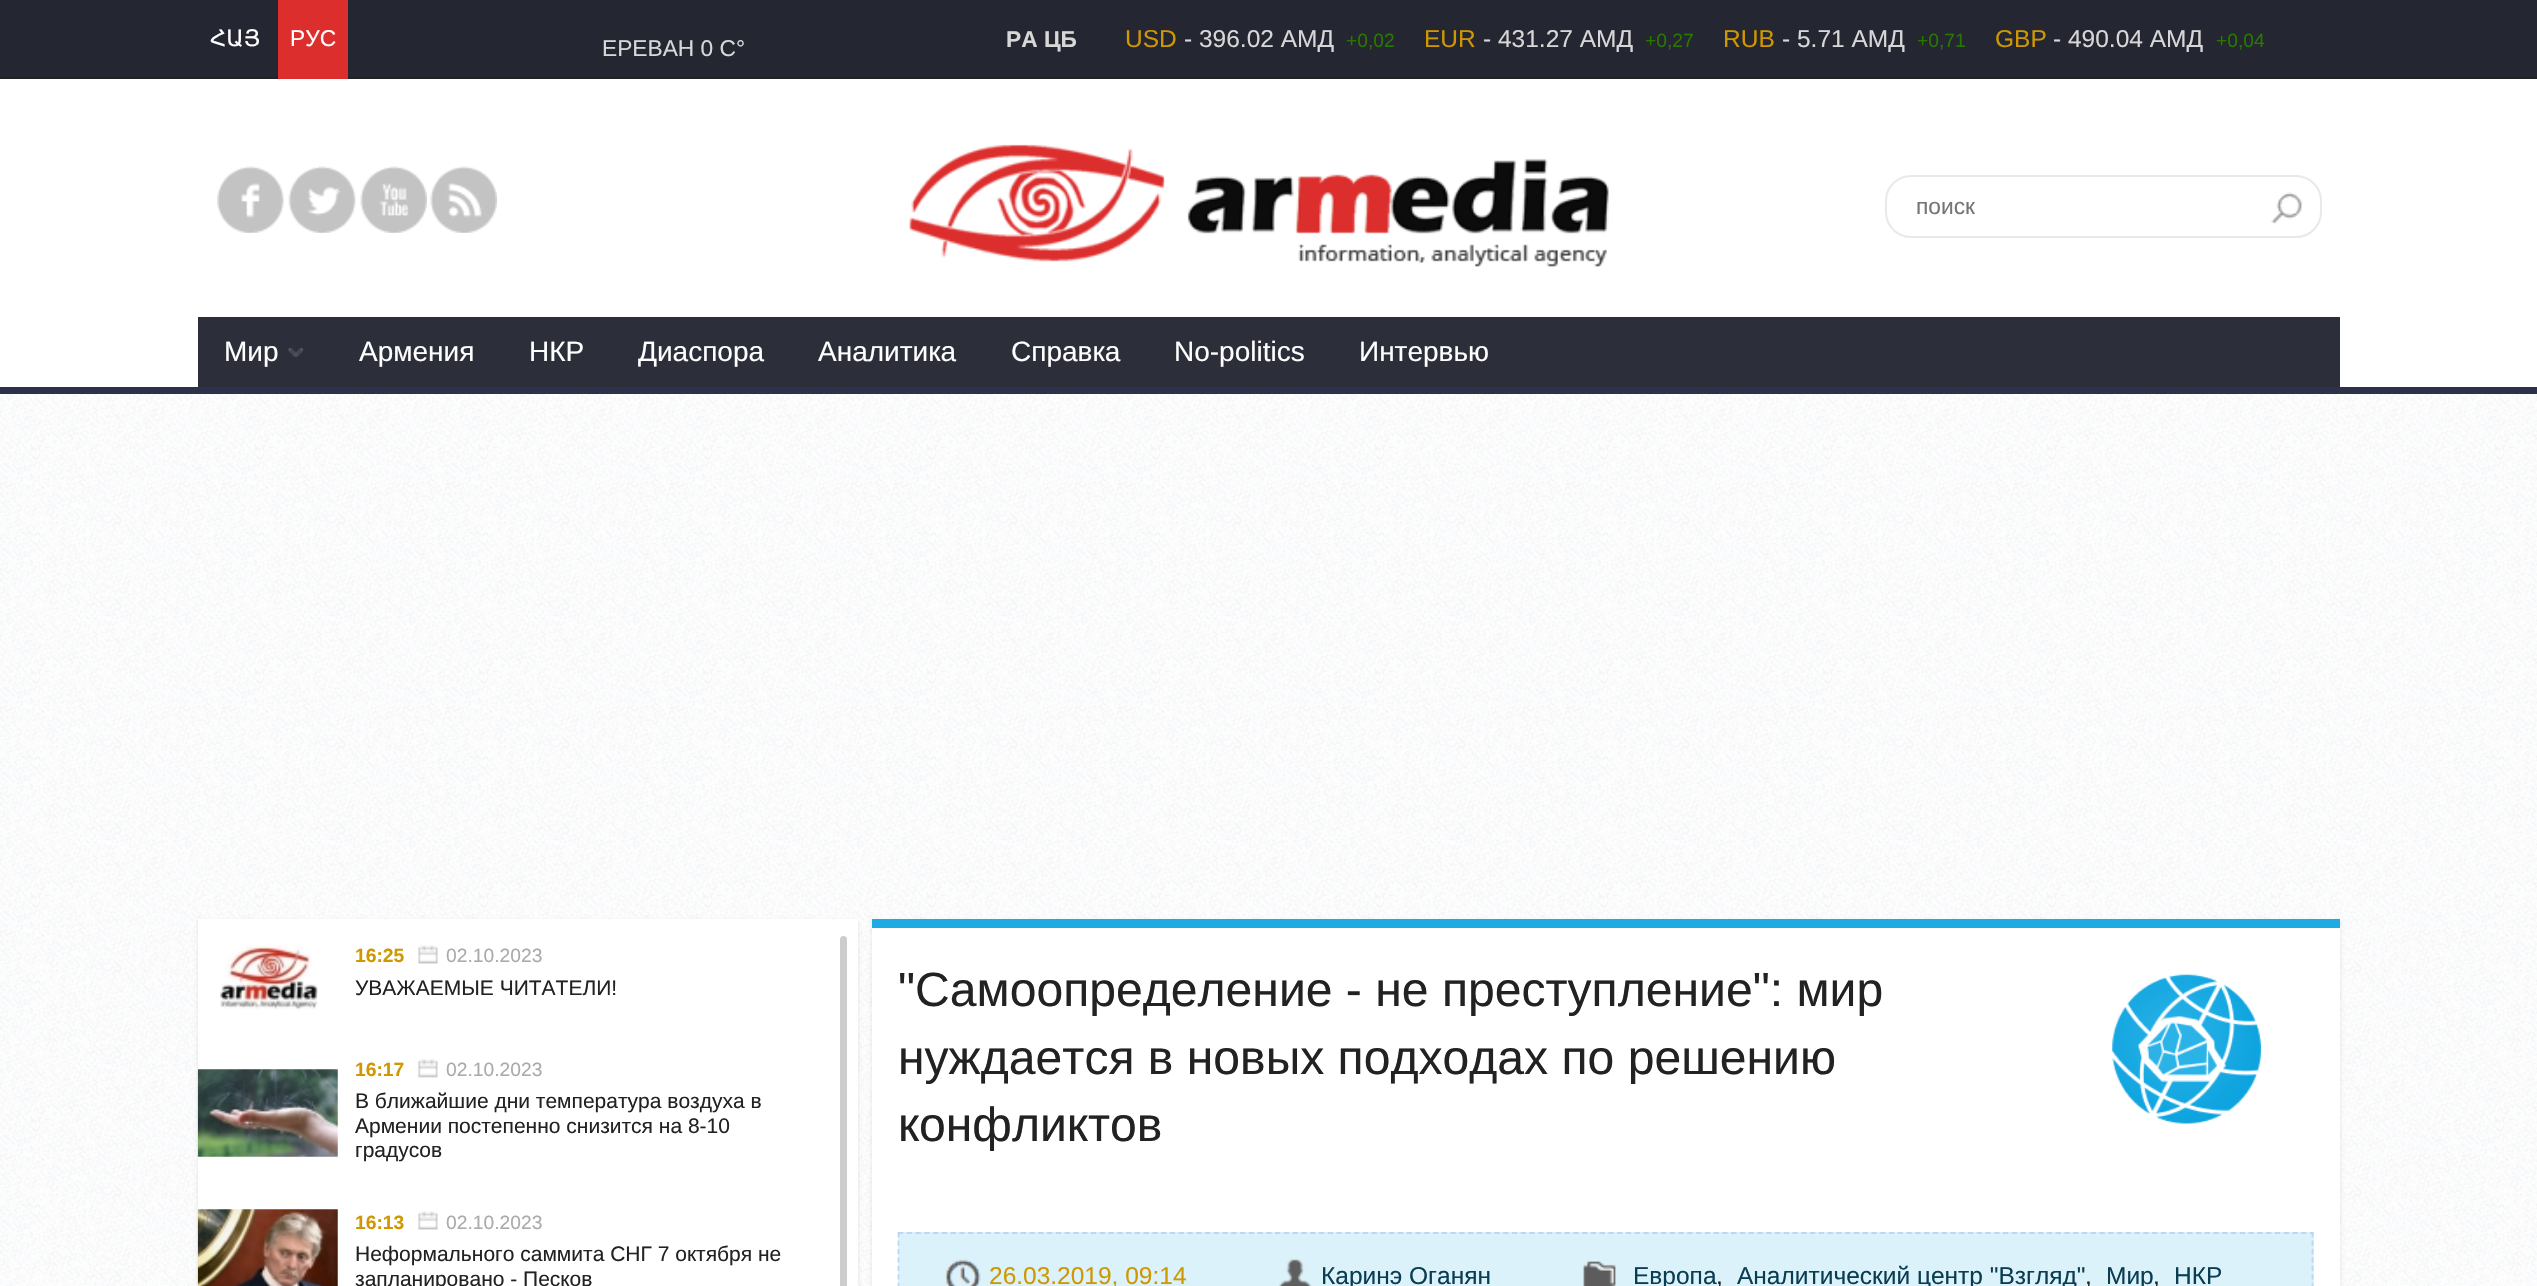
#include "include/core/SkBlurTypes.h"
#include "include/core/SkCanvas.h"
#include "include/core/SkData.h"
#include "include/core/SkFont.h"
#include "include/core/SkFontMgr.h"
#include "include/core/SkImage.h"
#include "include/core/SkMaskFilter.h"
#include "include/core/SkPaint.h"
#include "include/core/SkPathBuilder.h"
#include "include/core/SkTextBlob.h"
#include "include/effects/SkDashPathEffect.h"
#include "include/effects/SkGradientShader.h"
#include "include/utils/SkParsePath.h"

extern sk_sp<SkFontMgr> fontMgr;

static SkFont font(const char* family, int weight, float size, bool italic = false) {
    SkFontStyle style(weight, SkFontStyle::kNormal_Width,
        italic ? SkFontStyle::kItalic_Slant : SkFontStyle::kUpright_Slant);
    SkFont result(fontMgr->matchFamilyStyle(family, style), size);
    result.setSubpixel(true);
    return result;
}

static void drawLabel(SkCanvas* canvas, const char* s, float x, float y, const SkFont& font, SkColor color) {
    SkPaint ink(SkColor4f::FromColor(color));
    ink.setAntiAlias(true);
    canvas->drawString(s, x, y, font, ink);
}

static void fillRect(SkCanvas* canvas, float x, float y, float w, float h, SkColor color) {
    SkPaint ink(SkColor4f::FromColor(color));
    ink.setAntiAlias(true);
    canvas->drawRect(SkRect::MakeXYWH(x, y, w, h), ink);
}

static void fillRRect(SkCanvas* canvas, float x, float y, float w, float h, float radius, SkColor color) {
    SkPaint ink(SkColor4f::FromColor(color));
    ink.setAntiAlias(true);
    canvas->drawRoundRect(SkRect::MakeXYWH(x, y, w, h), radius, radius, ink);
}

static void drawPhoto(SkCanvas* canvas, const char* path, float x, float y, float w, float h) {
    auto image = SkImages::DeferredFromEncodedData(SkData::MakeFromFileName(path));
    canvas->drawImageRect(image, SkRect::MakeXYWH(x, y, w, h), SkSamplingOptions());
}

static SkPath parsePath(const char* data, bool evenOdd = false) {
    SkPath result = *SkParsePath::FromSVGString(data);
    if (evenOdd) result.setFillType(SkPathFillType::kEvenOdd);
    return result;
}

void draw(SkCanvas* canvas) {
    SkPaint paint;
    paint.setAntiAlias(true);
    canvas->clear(0xFFFFFFFF);
    drawPhoto(canvas, "assets/img1.png", 0, 394, 2537, 892);
    fillRect(canvas, 0, 0, 2537, 77, 0xFF242632);
    fillRect(canvas, 0, 77, 2537, 2, 0xFF222222);
    SkFont font1 = font("DejaVu Sans", 400, 22.75f);
    drawLabel(canvas, "ՀԱՅ", 210, 46, font1, 0xFFFFFFFF);
    fillRect(canvas, 278, 0, 70, 79, 0xFFDD2E2E);
    SkFont font2 = font("Liberation Sans", 400, 22.75f);
    drawLabel(canvas, "РУС", 290, 46, font2, 0xFFFFFFFF);
    drawLabel(canvas, "ЕРЕВАН 0 C°", 602, 56, font2, 0xFFD7D7D7);
    SkFont font3 = font("Liberation Sans", 700, 22.75f);
    drawLabel(canvas, "РА ЦБ", 1006, 47, font3, 0xFFD7D7D7);
    SkFont font4 = font("Liberation Sans", 400, 24.5f);
    drawLabel(canvas, "USD", 1125, 47, font4, 0xFFCF9700);
    drawLabel(canvas, "- 396.02 АМД", 1184, 47, font4, 0xFFD7D7D7);
    SkFont font5 = font("Liberation Sans", 400, 19.25f);
    drawLabel(canvas, "+0,02", 1346, 47, font5, 0xFF2A7700);
    drawLabel(canvas, "EUR", 1424, 47, font4, 0xFFCF9700);
    drawLabel(canvas, "- 431.27 АМД", 1483, 47, font4, 0xFFD7D7D7);
    drawLabel(canvas, "+0,27", 1645, 47, font5, 0xFF2A7700);
    drawLabel(canvas, "RUB", 1723, 47, font4, 0xFFCF9700);
    drawLabel(canvas, "- 5.71 АМД", 1782, 47, font4, 0xFFD7D7D7);
    drawLabel(canvas, "+0,71", 1917, 47, font5, 0xFF2A7700);
    drawLabel(canvas, "GBP", 1995, 47, font4, 0xFFCF9700);
    drawLabel(canvas, "- 490.04 АМД", 2053, 47, font4, 0xFFD7D7D7);
    drawLabel(canvas, "+0,04", 2216, 47, font5, 0xFF2A7700);
    fillRect(canvas, 0, 387, 2537, 7, 0xFF2D3149);
    drawPhoto(canvas, "assets/img2.png", 217, 166, 67, 67);
    drawPhoto(canvas, "assets/img3.png", 288, 166, 68, 67);
    drawPhoto(canvas, "assets/img4.png", 360, 166, 67, 67);
    drawPhoto(canvas, "assets/img5.png", 430, 166, 67, 67);
    drawPhoto(canvas, "assets/img6.png", 909, 144, 700, 123);
    drawPhoto(canvas, "assets/img7.png", 2271, 192, 32, 32);
    paint.setStroke(true);
    paint.setStrokeWidth(2);
    paint.setColor(0xFFE9E9E9);
    canvas->drawRoundRect(SkRect::MakeXYWH(1886, 176, 435, 61), 25, 25, paint);
    drawLabel(canvas, "поиск", 1916, 214, font2, 0xFF757575);
    fillRect(canvas, 198, 317, 2142, 70, 0xFF2C2E39);
    SkFont font6 = font("Liberation Sans", 400, 28);
    drawLabel(canvas, "Mир", 224, 361, font6, 0xFFFFFFFF);
    drawPhoto(canvas, "assets/img8.png", 288, 348, 15, 9);
    drawLabel(canvas, "Армения", 359, 361, font6, 0xFFFFFFFF);
    drawLabel(canvas, "НКР", 529, 361, font6, 0xFFFFFFFF);
    drawLabel(canvas, "Диаспора", 638, 361, font6, 0xFFFFFFFF);
    drawLabel(canvas, "Аналитика", 818, 361, font6, 0xFFFFFFFF);
    drawLabel(canvas, "Справка", 1011, 361, font6, 0xFFFFFFFF);
    drawLabel(canvas, "No-politics", 1174, 361, font6, 0xFFFFFFFF);
    drawLabel(canvas, "Интервью", 1359, 361, font6, 0xFFFFFFFF);
    paint.setStroke(false);
    paint.setColor(0x1A000000);
    paint.setMaskFilter(SkMaskFilter::MakeBlur(kNormal_SkBlurStyle, 2));
    canvas->drawRect(SkRect::MakeXYWH(198, 921, 660, 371), paint);
    paint.setMaskFilter(nullptr);
    fillRect(canvas, 198, 919, 660, 367, 0xFFFFFFFF);
    drawPhoto(canvas, "assets/img9.png", 220, 945, 98, 65);
    SkFont font7 = font("Liberation Sans", 700, 19.25f);
    drawLabel(canvas, "16:25", 355, 962, font7, 0xFFCF9700);
    drawPhoto(canvas, "assets/img10.png", 418, 945, 20, 19);
    drawLabel(canvas, "02.10.2023", 446, 962, font5, 0xFFAAAAAA);
    SkFont font8 = font("Liberation Sans", 400, 21);
    drawLabel(canvas, "УВАЖАЕМЫЕ ЧИТАТЕЛИ!", 355, 995, font8, 0xFF222222);
    drawPhoto(canvas, "assets/img11.png", 197, 1069, 141, 88);
    drawLabel(canvas, "16:17", 355, 1076, font7, 0xFFCF9700);
    drawPhoto(canvas, "assets/img12.png", 417, 1059, 21, 19);
    drawLabel(canvas, "02.10.2023", 446, 1076, font5, 0xFFAAAAAA);
    drawLabel(canvas, "В ближайшие дни температура воздуха в", 355, 1108, font8, 0xFF222222);
    drawLabel(canvas, "Армении постепенно снизится на 8-10", 355, 1133, font8, 0xFF222222);
    drawLabel(canvas, "градусов", 355, 1157, font8, 0xFF222222);
    drawPhoto(canvas, "assets/img13.png", 197, 1209, 141, 77);
    drawLabel(canvas, "16:13", 355, 1229, font7, 0xFFCF9700);
    drawPhoto(canvas, "assets/img10.png", 418, 1211, 20, 19);
    drawLabel(canvas, "02.10.2023", 446, 1229, font5, 0xFFAAAAAA);
    drawLabel(canvas, "Неформального саммита СНГ 7 октября не", 355, 1261, font8, 0xFF222222);
    drawLabel(canvas, "запланировано - Песков", 355, 1286, font8, 0xFF222222);
    fillRRect(canvas, 840, 936, 7, 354, 3.5f, 0xFFCDCDCD);
    paint.setMaskFilter(SkMaskFilter::MakeBlur(kNormal_SkBlurStyle, 2));
    canvas->drawRect(SkRect::MakeXYWH(872, 921, 1468, 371), paint);
    paint.setMaskFilter(nullptr);
    fillRect(canvas, 872, 928, 1468, 358, 0xFFFFFFFF);
    fillRect(canvas, 872, 919, 1468, 9, 0xFF1DABE3);
    SkFont font9 = font("Liberation Sans", 400, 48.1f);
    drawLabel(canvas, "\"Самоопределение - не преступление\": мир", 898, 1006, font9, 0xFF222222);
    drawPhoto(canvas, "assets/img14.png", 2112, 974, 149, 150);
    drawLabel(canvas, "нуждается в новых подходах по решению", 898, 1074, font9, 0xFF222222);
    drawLabel(canvas, "конфликтов", 898, 1141, font9, 0xFF222222);
    fillRect(canvas, 898, 1232, 1416, 54, 0xFFDCF2FA);
    paint.setStroke(true);
    paint.setStrokeWidth(1.8f);
    paint.setColor(0xFFC0D4F4);
    paint.setPathEffect(SkDashPathEffect::Make({{5.25f, 3.52f}}, 0));
    canvas->drawPath(parsePath("M898 1233H2313.5"), paint);
    paint.setPathEffect(nullptr);
    paint.setPathEffect(SkDashPathEffect::Make({{5.25f, 3.19f}}, 0));
    canvas->drawPath(parsePath("M2312.5 1232V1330"), paint);
    paint.setPathEffect(nullptr);
    paint.setPathEffect(SkDashPathEffect::Make({{5.25f, 3.19f}}, 0));
    canvas->drawPath(parsePath("M898.5 1232V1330"), paint);
    paint.setPathEffect(nullptr);
    drawPhoto(canvas, "assets/img15.png", 944, 1259, 37, 27);
    drawLabel(canvas, "26.03.2019, 09:14", 989, 1284, font4, 0xFFCF9700);
    drawPhoto(canvas, "assets/img16.png", 1279, 1259, 33, 27);
    drawLabel(canvas, "Каринэ Оганян", 1321, 1284, font4, 0xFF093D52);
    drawPhoto(canvas, "assets/img17.png", 1583, 1261, 33, 25);
    drawLabel(canvas, "Европа", 1633, 1284, font4, 0xFF093D52);
    drawLabel(canvas, ",", 1716, 1284, font4, 0xFF222222);
    drawLabel(canvas, "Аналитический центр \"Взгляд\"", 1737, 1284, font4, 0xFF093D52);
    drawLabel(canvas, ",", 2085, 1284, font4, 0xFF222222);
    drawLabel(canvas, "Mир", 2106, 1284, font4, 0xFF093D52);
    drawLabel(canvas, ",", 2153, 1284, font4, 0xFF222222);
    drawLabel(canvas, "НКР", 2174, 1284, font4, 0xFF093D52);
}
